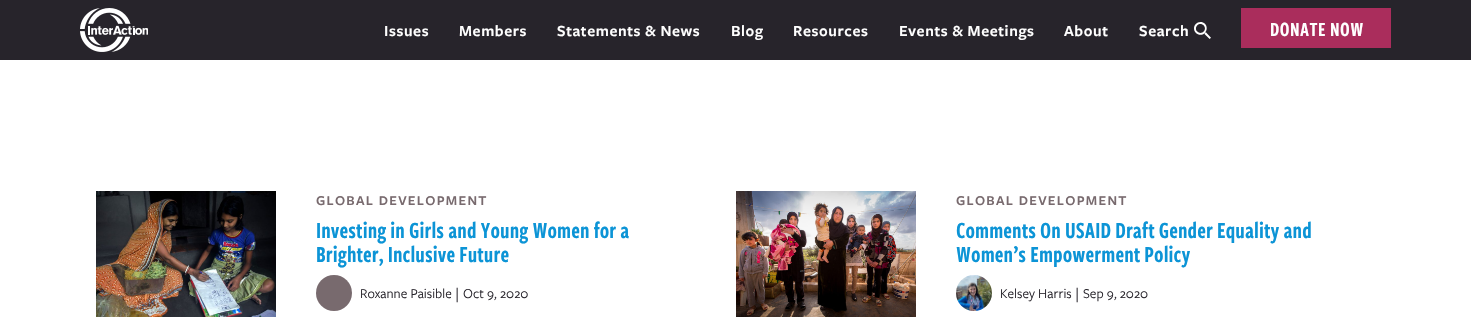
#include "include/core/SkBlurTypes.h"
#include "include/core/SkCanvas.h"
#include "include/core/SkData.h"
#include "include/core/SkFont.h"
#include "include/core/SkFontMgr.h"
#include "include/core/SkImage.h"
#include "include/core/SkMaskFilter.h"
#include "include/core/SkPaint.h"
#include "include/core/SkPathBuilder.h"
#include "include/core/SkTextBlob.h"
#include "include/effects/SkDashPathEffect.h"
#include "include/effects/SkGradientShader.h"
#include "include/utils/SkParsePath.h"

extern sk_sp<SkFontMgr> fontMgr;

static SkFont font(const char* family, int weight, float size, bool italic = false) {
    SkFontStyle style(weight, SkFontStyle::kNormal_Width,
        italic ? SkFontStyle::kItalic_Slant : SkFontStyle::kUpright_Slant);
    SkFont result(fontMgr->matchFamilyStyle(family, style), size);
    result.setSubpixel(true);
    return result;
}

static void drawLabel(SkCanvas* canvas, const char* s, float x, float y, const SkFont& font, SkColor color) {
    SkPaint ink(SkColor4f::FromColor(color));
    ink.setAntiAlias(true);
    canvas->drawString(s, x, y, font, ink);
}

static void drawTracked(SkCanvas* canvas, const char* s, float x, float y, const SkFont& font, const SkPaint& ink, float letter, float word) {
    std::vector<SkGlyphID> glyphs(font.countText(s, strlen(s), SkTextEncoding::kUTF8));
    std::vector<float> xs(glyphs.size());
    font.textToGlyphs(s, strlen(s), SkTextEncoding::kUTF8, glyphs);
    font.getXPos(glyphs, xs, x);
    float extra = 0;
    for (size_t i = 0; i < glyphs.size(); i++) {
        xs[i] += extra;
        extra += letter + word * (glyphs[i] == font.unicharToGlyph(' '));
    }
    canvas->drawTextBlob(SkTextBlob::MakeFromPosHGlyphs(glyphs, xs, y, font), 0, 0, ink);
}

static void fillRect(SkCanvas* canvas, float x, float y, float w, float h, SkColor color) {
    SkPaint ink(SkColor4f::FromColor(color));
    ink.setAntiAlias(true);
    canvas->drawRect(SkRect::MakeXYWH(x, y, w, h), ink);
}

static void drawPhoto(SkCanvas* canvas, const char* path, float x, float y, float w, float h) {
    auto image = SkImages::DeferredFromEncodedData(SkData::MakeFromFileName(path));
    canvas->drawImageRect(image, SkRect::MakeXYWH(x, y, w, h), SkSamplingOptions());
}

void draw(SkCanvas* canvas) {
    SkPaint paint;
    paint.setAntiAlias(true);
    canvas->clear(0xFFFFFFFF);
    fillRect(canvas, 0, 0, 1471, 60, 0xFF27242B);
    drawPhoto(canvas, "assets/img1.png", 80, 8, 68, 44);
    SkFont font1 = font("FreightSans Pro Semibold", 600, 16);
    paint.setColor(0xFFFFFFFF);
    drawTracked(canvas, "Issues", 384, 36, font1, paint, 0.6f, 0);
    drawTracked(canvas, "Members", 459, 36, font1, paint, 0.6f, 0);
    drawTracked(canvas, "Statements & News", 557, 36, font1, paint, 0.6f, 0);
    drawTracked(canvas, "Blog", 731, 36, font1, paint, 0.6f, 0);
    drawTracked(canvas, "Resources", 793, 36, font1, paint, 0.6f, 0);
    drawTracked(canvas, "Events & Meetings", 899, 36, font1, paint, 0.6f, 0);
    drawTracked(canvas, "About", 1064, 36, font1, paint, 0.6f, 0);
    drawTracked(canvas, "Search", 1139, 36, font1, paint, 0.6f, 0);
    drawPhoto(canvas, "assets/img2.png", 1194, 22, 17, 17);
    fillRect(canvas, 1241, 8, 150, 40, 0xFFAA2D5C);
    SkFont font2 = font("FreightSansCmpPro", 600, 21);
    drawTracked(canvas, "DONATE NOW", 1270, 36, font2, paint, 0.5f, 0);
    drawPhoto(canvas, "assets/img3.png", 96, 191, 180, 126);
    SkFont font3 = font("FreightSans Pro Semibold", 600, 14);
    paint.setColor(0xFF786A6E);
    drawTracked(canvas, "GLOBAL DEVELOPMENT", 316, 205, font3, paint, 1.3f, 0);
    SkFont font4 = font("FreightSansCmpPro", 600, 24);
    paint.setColor(0xFF0C94D6);
    drawTracked(canvas, "Investing in Girls and Young Women for a", 316, 238, font4, paint, 0.1f, 0);
    drawTracked(canvas, "Brighter, Inclusive Future", 316, 262, font4, paint, 0.1f, 0);
    paint.setColor(0xFF786A6E);
    canvas->drawCircle(334, 293, 18, paint);
    SkFont font5 = font("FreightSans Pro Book", 400, 14);
    drawLabel(canvas, "Roxanne Paisible", 360, 298, font5, 0xFF27242B);
    SkFont font6 = font("FreightSans Pro Book", 400, 16);
    drawLabel(canvas, "|", 455, 299, font6, 0xFF27242B);
    drawLabel(canvas, "Oct 9, 2020", 463, 298, font5, 0xFF27242B);
    drawPhoto(canvas, "assets/img4.png", 736, 191, 180, 126);
    drawTracked(canvas, "GLOBAL DEVELOPMENT", 956, 205, font3, paint, 1.3f, 0);
    paint.setColor(0xFF0C94D6);
    drawTracked(canvas, "Comments On USAID Draft Gender Equality and", 956, 238, font4, paint, 0.1f, 0);
    drawTracked(canvas, "Women’s Empowerment Policy", 956, 262, font4, paint, 0.1f, 0);
    drawPhoto(canvas, "assets/img5.png", 956, 275, 36, 36);
    drawLabel(canvas, "Kelsey Harris", 1000, 298, font5, 0xFF27242B);
    drawLabel(canvas, "|", 1075, 299, font6, 0xFF27242B);
    drawLabel(canvas, "Sep 9, 2020", 1083, 298, font5, 0xFF27242B);
}
